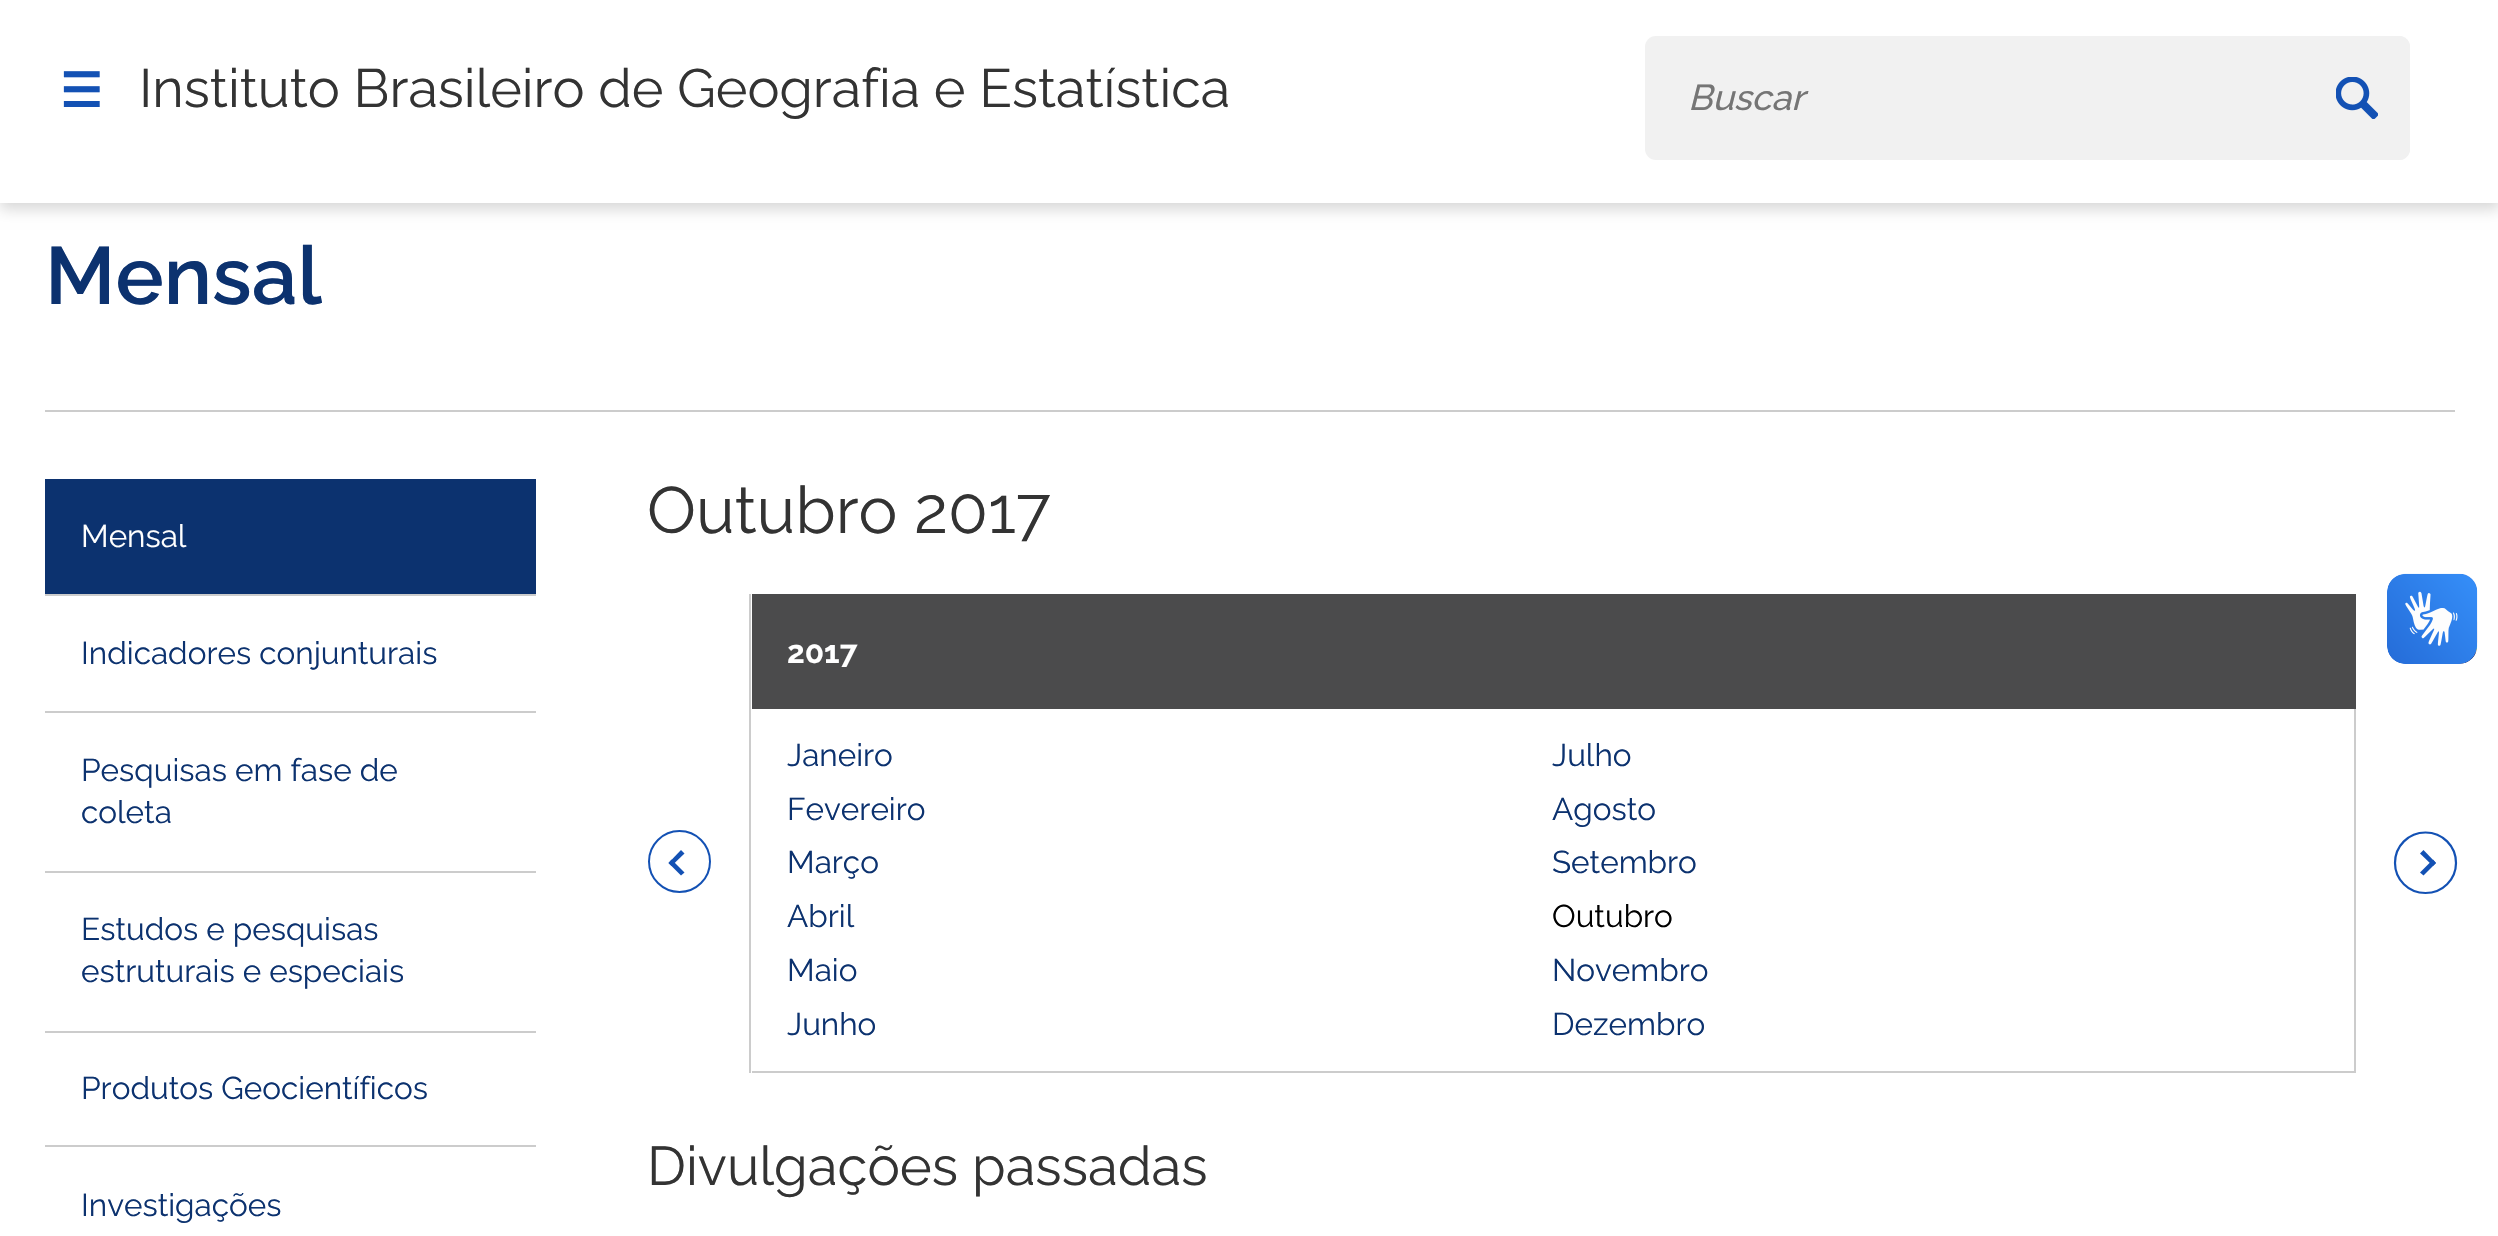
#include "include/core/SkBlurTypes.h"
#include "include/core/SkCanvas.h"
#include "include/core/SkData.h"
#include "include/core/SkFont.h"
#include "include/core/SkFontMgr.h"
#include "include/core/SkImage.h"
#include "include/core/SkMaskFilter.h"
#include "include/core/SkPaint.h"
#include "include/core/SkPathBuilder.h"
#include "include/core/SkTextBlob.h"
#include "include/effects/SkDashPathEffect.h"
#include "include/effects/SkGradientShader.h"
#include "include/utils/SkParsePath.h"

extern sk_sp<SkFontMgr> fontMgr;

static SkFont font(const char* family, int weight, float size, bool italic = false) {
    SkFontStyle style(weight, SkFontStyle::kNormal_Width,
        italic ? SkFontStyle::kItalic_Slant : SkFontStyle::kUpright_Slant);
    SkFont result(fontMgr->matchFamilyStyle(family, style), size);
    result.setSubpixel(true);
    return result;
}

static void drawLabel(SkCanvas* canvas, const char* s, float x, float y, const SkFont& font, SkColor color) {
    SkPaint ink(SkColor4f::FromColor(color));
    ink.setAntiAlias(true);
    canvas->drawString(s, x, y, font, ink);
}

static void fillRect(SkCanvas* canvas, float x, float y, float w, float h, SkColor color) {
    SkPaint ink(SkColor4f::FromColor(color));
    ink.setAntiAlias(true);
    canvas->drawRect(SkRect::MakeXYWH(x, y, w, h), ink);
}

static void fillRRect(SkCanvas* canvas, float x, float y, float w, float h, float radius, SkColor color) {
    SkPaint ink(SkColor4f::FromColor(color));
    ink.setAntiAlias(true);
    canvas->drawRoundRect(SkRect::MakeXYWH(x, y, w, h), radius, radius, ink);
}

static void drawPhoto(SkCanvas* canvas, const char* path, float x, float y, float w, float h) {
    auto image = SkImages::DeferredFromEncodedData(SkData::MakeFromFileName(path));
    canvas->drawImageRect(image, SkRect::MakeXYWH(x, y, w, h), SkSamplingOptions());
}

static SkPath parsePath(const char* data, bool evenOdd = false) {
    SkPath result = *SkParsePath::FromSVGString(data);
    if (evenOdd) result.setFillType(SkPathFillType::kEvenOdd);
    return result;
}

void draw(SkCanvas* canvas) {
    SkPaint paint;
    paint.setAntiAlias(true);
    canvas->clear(0xFFFFFFFF);
    paint.setColor(0x29000000);
    paint.setMaskFilter(SkMaskFilter::MakeBlur(kNormal_SkBlurStyle, 7));
    canvas->drawRect(SkRect::MakeXYWH(0, -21, 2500, 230), paint);
    paint.setMaskFilter(nullptr);
    fillRect(canvas, 0, 0, 2498, 203, 0xFFFFFFFF);
    SkFont font1 = font("DejaVu Sans", 700, 47);
    drawLabel(canvas, "☰", 60, 107, font1, 0xFF1351B4);
    SkFont font2 = font("Raleway", 400, 53.9f);
    drawLabel(canvas, "Instituto Brasileiro de Geografia e Estatística", 139, 107, font2, 0xFF333333);
    fillRRect(canvas, 1645, 36, 765, 124, 11, 0xFFF1F1F1);
    SkFont font3 = font("Raleway", 500, 36, true);
    drawLabel(canvas, "Buscar", 1688, 110, font3, 0xFF757575);
    paint.setColor(0xFFF1F1F1);
    canvas->drawPath(parsePath("M2302 36H2399C2405 36 2410 41 2410 47V149C2410 155 2405 160 2399 160H2302Z"), paint);
    drawPhoto(canvas, "assets/img1.png", 2336, 77, 42, 42);
    fillRect(canvas, 45, 410, 2410, 2, 0xFFCCCCCC);
    SkFont font4 = font("Raleway", 600, 81);
    drawLabel(canvas, "Mensal", 45, 304, font4, 0xFF0C326F);
    fillRect(canvas, 45, 479, 491, 115, 0xFF0C326F);
    fillRect(canvas, 45, 594, 491, 2, 0xFFCCCCCC);
    SkFont font5 = font("Raleway", 400, 31.5f);
    drawLabel(canvas, "Mensal", 81, 547, font5, 0xFFFFFFFF);
    fillRect(canvas, 45, 711, 491, 2, 0xFFCCCCCC);
    drawLabel(canvas, "Indicadores conjunturais", 81, 664, font5, 0xFF0C326F);
    fillRect(canvas, 45, 871, 491, 2, 0xFFCCCCCC);
    drawLabel(canvas, "Pesquisas em fase de", 81, 781, font5, 0xFF0C326F);
    drawLabel(canvas, "coleta", 81, 823, font5, 0xFF0C326F);
    fillRect(canvas, 45, 1031, 491, 2, 0xFFCCCCCC);
    drawLabel(canvas, "Estudos e pesquisas", 81, 940, font5, 0xFF0C326F);
    drawLabel(canvas, "estruturais e especiais", 81, 982, font5, 0xFF0C326F);
    fillRect(canvas, 45, 1145, 491, 2, 0xFFCCCCCC);
    drawLabel(canvas, "Produtos Geocientíficos", 81, 1099, font5, 0xFF0C326F);
    drawLabel(canvas, "Investigações", 81, 1216, font5, 0xFF0C326F);
    SkFont font6 = font("Raleway", 400, 65.25f);
    drawLabel(canvas, "Outubro 2017", 647, 533, font6, 0xFF333333);
    paint.setStroke(true);
    paint.setStrokeWidth(2);
    paint.setColor(0xFF1351B4);
    canvas->drawCircle(679.5f, 861.5f, 30.5f, paint);
    paint.setStroke(false);
    canvas->drawPath(parsePath("M684.5 872.5L681 875.5L668.5 863L671.5 859.5Z"), paint);
    canvas->drawPath(parsePath("M684.5 853.5L671.5 866L668.5 863L681 850Z"), paint);
    fillRect(canvas, 749, 594, 2, 479, 0xFFCCCCCC);
    fillRect(canvas, 752, 594, 1604, 115, 0xFF4B4B4C);
    SkFont font7 = font("Raleway", 700, 31.5f);
    drawLabel(canvas, "2017", 787, 663, font7, 0xFFFFFFFF);
    fillRect(canvas, 2354, 709, 2, 364, 0xFFCCCCCC);
    fillRect(canvas, 752, 1071, 1604, 2, 0xFFCCCCCC);
    drawLabel(canvas, "Janeiro", 787, 766, font5, 0xFF0C326F);
    drawLabel(canvas, "Fevereiro", 787, 820, font5, 0xFF0C326F);
    drawLabel(canvas, "Março", 787, 873, font5, 0xFF0C326F);
    drawLabel(canvas, "Abril", 787, 927, font5, 0xFF0C326F);
    drawLabel(canvas, "Maio", 787, 981, font5, 0xFF0C326F);
    drawLabel(canvas, "Junho", 787, 1035, font5, 0xFF0C326F);
    drawLabel(canvas, "Julho", 1552, 766, font5, 0xFF0C326F);
    drawLabel(canvas, "Agosto", 1552, 820, font5, 0xFF0C326F);
    drawLabel(canvas, "Setembro", 1552, 873, font5, 0xFF0C326F);
    drawLabel(canvas, "Outubro", 1552, 927, font5, 0xFF000000);
    drawLabel(canvas, "Novembro", 1552, 981, font5, 0xFF0C326F);
    drawLabel(canvas, "Dezembro", 1552, 1035, font5, 0xFF0C326F);
    paint.setStroke(true);
    paint.setStrokeWidth(2.2f);
    canvas->drawPath(parsePath("M2425.5 893C2408.5 893 2395 879.5 2395 863C2395 846 2408.5 832.5 2425.5 832.5C2442.5 832.5 2456 846 2456 863C2456 879.5 2442.5 893 2425.5 893Z"), paint);
    paint.setStroke(false);
    canvas->drawPath(parsePath("M2420 853.5L2423.5 850L2436 863L2433 866Z"), paint);
    canvas->drawPath(parsePath("M2420 872.5L2433 859.5L2436 863L2423.5 875.5Z"), paint);
    SkFont font8 = font("Raleway", 400, 54.5f);
    drawLabel(canvas, "Divulgações passadas", 647, 1185, font8, 0xFF333333);
    drawPhoto(canvas, "assets/img2.png", 2387, 573, 91, 91);
    drawPhoto(canvas, "assets/img3.png", 2387, 574, 90, 90);
}
